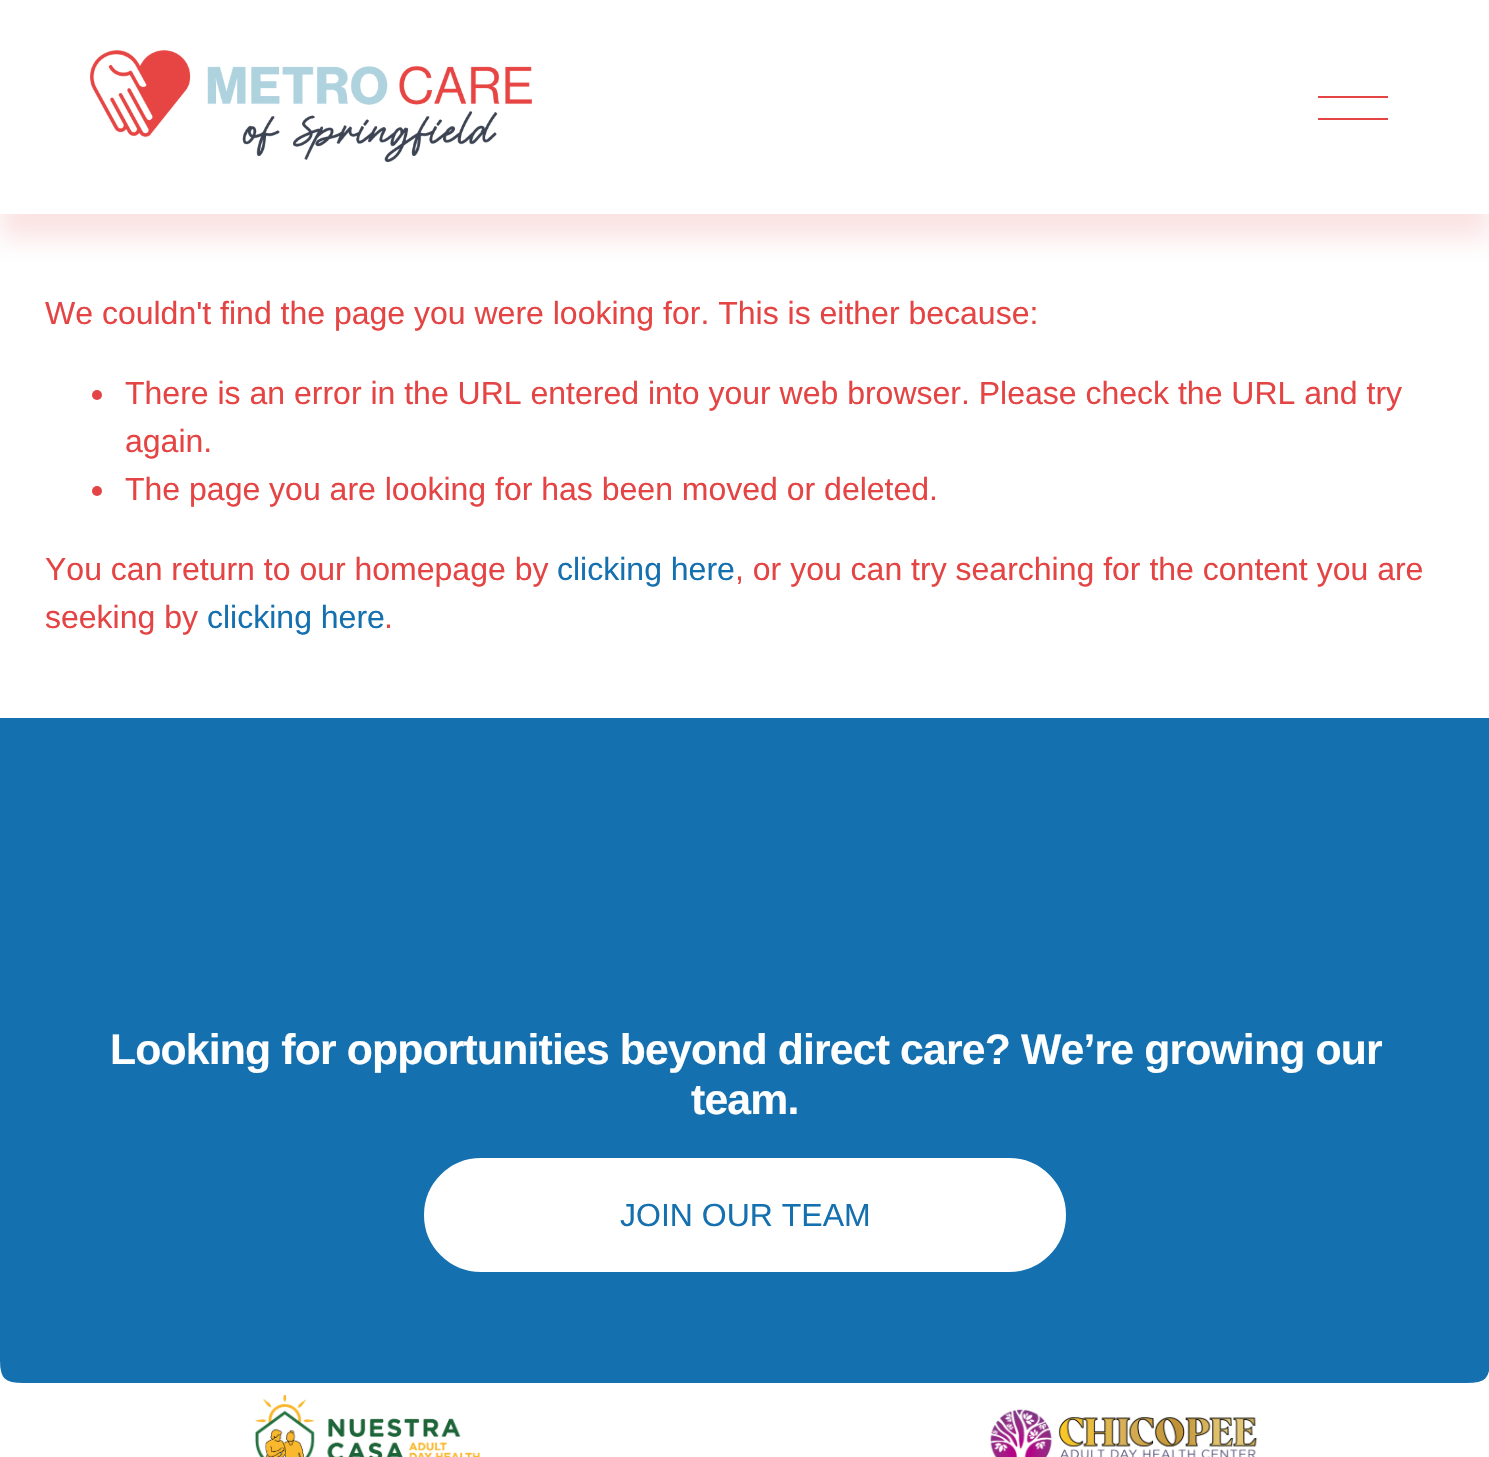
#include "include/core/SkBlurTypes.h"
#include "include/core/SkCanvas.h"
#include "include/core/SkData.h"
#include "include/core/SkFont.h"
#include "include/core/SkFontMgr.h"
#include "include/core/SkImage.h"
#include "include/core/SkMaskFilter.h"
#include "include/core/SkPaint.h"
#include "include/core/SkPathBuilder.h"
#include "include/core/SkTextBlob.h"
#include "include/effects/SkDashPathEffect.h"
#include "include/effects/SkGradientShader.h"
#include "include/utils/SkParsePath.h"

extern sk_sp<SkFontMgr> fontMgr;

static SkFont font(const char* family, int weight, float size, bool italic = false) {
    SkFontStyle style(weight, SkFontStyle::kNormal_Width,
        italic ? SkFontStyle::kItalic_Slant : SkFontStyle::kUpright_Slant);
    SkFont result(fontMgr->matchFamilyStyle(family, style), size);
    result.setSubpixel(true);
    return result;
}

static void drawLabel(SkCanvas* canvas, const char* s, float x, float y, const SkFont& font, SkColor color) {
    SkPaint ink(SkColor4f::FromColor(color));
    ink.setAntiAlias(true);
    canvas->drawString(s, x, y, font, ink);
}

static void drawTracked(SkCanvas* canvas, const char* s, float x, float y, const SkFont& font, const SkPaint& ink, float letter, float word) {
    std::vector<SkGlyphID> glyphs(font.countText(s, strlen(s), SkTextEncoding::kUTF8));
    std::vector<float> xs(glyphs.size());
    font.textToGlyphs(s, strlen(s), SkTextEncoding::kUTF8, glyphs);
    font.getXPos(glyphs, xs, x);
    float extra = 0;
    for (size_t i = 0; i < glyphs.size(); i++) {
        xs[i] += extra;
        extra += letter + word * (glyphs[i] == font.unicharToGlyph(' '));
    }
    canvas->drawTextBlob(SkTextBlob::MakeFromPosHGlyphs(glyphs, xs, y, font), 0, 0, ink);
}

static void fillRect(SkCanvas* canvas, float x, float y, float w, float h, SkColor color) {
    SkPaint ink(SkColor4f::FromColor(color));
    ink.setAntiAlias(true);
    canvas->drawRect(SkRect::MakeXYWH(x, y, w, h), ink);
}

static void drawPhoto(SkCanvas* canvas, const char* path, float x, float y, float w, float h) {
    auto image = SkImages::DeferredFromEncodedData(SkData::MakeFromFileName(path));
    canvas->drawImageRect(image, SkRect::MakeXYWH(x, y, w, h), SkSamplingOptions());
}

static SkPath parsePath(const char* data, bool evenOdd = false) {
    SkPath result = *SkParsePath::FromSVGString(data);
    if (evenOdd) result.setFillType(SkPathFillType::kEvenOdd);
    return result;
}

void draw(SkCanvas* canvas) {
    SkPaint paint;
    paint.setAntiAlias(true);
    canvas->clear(0xFFFFFFFF);
    canvas->save();
    canvas->clipRect(SkRect::MakeXYWH(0, 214, 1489, 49));
    paint.setColor(0xFFFBE3E3);
    paint.setMaskFilter(SkMaskFilter::MakeBlur(kNormal_SkBlurStyle, 12));
    canvas->drawRect(SkRect::MakeXYWH(0, 24, 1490, 214), paint);
    paint.setMaskFilter(nullptr);
    canvas->restore();
    drawPhoto(canvas, "assets/img1.png", 90, 50, 442, 112);
    fillRect(canvas, 1318, 96, 70, 2, 0xFFE44444);
    fillRect(canvas, 1318, 118, 70, 2, 0xFFE44444);
    SkFont font1 = font("Liberation Sans", 400, 32);
    drawLabel(canvas, "We couldn't find the page you were looking for. This is either because:", 45, 324, font1, 0xFFE44444);
    paint.setColor(0xFFE44444);
    canvas->drawCircle(97, 395, 5, paint);
    drawLabel(canvas, "There is an error in the URL entered into your web browser. Please check the URL and try", 125, 404, font1, 0xFFE44444);
    drawLabel(canvas, "again.", 125, 452, font1, 0xFFE44444);
    canvas->drawCircle(97, 491, 5, paint);
    drawLabel(canvas, "The page you are looking for has been moved or deleted.", 125, 500, font1, 0xFFE44444);
    drawLabel(canvas, "You can return to our homepage by", 45, 580, font1, 0xFFE44444);
    drawLabel(canvas, "clicking here", 557, 580, font1, 0xFF1470AF);
    drawLabel(canvas, ", or you can try searching for the content you are", 735, 580, font1, 0xFFE44444);
    drawLabel(canvas, "seeking by", 45, 628, font1, 0xFFE44444);
    drawLabel(canvas, "clicking here", 207, 628, font1, 0xFF1470AF);
    drawLabel(canvas, ".", 384, 628, font1, 0xFFE44444);
    fillRect(canvas, 0, 718, 1489, 665, 0xFF1470AF);
    SkFont font2 = font("Liberation Sans", 700, 42.75f);
    paint.setColor(0xFFFFFFFF);
    drawTracked(canvas, "Looking for opportunities beyond direct care? We’re growing our", 110, 1064, font2, paint, -0.85f, 0);
    drawTracked(canvas, "team.", 691, 1114, font2, paint, -0.85f, 0);
    canvas->drawRoundRect(SkRect::MakeXYWH(423, 1157, 644, 116), 58, 58, paint);
    paint.setStroke(true);
    paint.setStrokeWidth(2);
    paint.setColor(0xFF1470AF);
    canvas->drawRoundRect(SkRect::MakeXYWH(423, 1157, 644, 116), 58, 58, paint);
    drawLabel(canvas, "JOIN OUR TEAM", 620, 1226, font1, 0xFF1470AF);
    paint.setStrokeWidth(12);
    paint.setStrokeCap(SkPaint::kSquare_Cap);
    paint.setColor(0xFFFFFFFF);
    canvas->drawPath(parsePath("M-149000 1053.5V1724M-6 1360.5C-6 1382 1.5 1389 23.5 1389H1466.5C1488.5 1389 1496 1382 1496 1360.5"), paint);
    drawPhoto(canvas, "assets/img2.png", 254, 1395, 227, 62);
    drawPhoto(canvas, "assets/img3.png", 990, 1409, 268, 48);
}
